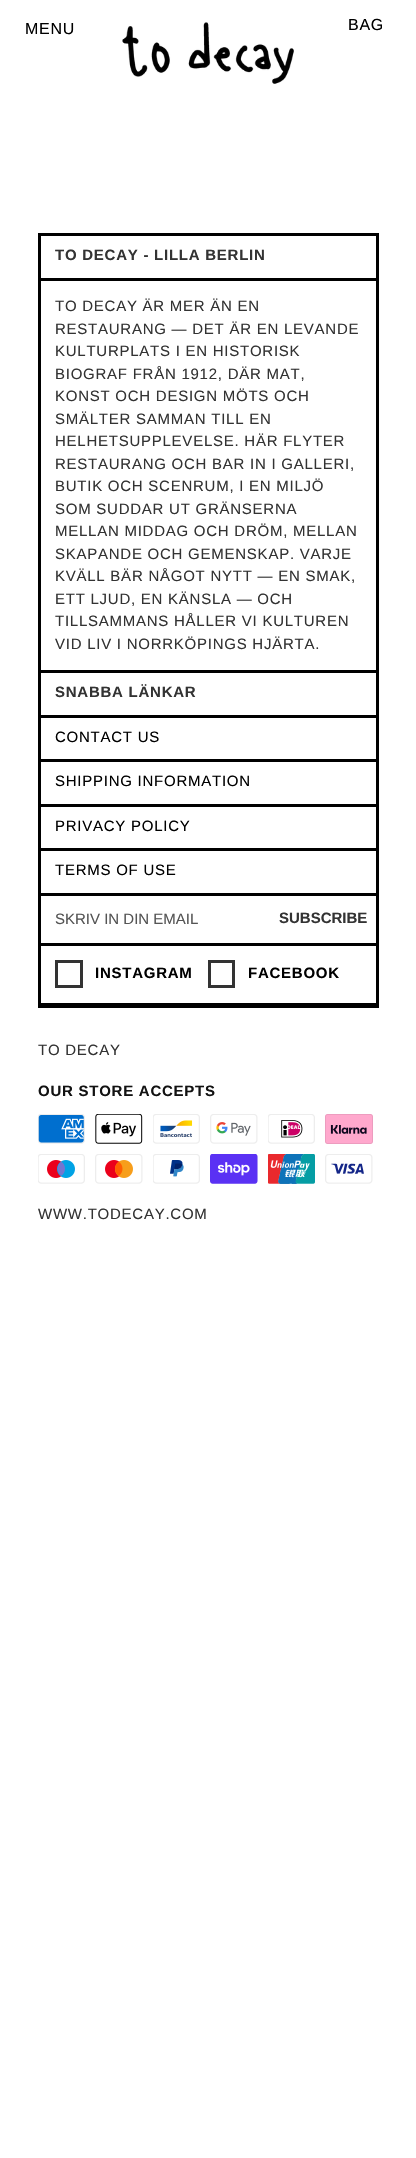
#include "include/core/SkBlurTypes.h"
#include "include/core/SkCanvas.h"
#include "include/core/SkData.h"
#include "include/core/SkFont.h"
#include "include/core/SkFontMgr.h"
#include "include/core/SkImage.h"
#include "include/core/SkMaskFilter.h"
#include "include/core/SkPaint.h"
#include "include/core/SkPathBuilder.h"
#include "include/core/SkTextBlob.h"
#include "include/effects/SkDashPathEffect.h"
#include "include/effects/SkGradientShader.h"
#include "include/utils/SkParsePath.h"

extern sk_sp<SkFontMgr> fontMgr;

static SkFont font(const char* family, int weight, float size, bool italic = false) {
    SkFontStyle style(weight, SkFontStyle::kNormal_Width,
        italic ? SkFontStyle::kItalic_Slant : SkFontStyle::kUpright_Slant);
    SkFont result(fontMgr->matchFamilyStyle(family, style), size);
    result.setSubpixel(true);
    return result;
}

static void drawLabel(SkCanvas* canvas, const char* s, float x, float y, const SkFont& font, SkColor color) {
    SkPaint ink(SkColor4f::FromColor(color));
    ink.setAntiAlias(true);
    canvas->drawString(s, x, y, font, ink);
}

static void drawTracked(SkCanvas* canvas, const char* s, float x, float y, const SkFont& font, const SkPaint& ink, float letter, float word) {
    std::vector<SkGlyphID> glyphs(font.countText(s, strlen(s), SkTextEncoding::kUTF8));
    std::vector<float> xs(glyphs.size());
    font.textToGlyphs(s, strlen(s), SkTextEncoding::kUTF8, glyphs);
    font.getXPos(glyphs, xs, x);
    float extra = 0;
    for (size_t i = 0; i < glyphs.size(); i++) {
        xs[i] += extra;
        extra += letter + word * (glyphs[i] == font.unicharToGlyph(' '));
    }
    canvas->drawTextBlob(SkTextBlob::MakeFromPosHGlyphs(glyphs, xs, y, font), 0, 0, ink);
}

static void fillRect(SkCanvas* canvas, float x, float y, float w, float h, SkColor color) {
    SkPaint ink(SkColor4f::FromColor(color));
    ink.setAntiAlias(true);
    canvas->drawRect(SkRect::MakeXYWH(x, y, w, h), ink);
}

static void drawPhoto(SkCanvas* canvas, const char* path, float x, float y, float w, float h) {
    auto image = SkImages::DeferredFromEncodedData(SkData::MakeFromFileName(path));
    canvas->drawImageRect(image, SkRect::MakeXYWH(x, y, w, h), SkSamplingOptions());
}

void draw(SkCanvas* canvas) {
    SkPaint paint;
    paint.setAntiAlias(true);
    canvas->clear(0xFFFFFFFF);
    SkFont font1 = font("Liberation Sans", 400, 16);
    paint.setColor(0xFF000000);
    drawTracked(canvas, "MENU", 25, 34, font1, paint, 0.75f, 0);
    drawPhoto(canvas, "assets/img1.png", 122, 22, 172, 62);
    drawTracked(canvas, "BAG", 348, 30, font1, paint, 0.75f, 0);
    paint.setStroke(true);
    paint.setStrokeWidth(3);
    canvas->drawRect(SkRect::MakeXYWH(39.5f, 234.5f, 338, 772), paint);
    fillRect(canvas, 40, 670, 336, 3, 0xFF000000);
    fillRect(canvas, 40, 278, 336, 3, 0xFF000000);
    SkFont font2 = font("Liberation Sans", 700, 15);
    paint.setStroke(false);
    paint.setColor(0xFF333333);
    drawTracked(canvas, "TO DECAY - LILLA BERLIN", 55, 260, font2, paint, 0.75f, 0);
    SkFont font3 = font("Liberation Sans", 400, 15);
    drawTracked(canvas, "TO DECAY ÄR MER ÄN EN", 55, 311, font3, paint, 0.75f, 0);
    drawTracked(canvas, "RESTAURANG — DET ÄR EN LEVANDE", 55, 334, font3, paint, 0.75f, 0);
    drawTracked(canvas, "KULTURPLATS I EN HISTORISK", 55, 356, font3, paint, 0.75f, 0);
    drawTracked(canvas, "BIOGRAF FRÅN 1912, DÄR MAT,", 55, 379, font3, paint, 0.75f, 0);
    drawTracked(canvas, "KONST OCH DESIGN MÖTS OCH", 55, 401, font3, paint, 0.75f, 0);
    drawTracked(canvas, "SMÄLTER SAMMAN TILL EN", 55, 424, font3, paint, 0.75f, 0);
    drawTracked(canvas, "HELHETSUPPLEVELSE. HÄR FLYTER", 55, 446, font3, paint, 0.75f, 0);
    drawTracked(canvas, "RESTAURANG OCH BAR IN I GALLERI,", 55, 469, font3, paint, 0.75f, 0);
    drawTracked(canvas, "BUTIK OCH SCENRUM, I EN MILJÖ", 55, 491, font3, paint, 0.75f, 0);
    drawTracked(canvas, "SOM SUDDAR UT GRÄNSERNA", 55, 514, font3, paint, 0.75f, 0);
    drawTracked(canvas, "MELLAN MIDDAG OCH DRÖM, MELLAN", 55, 536, font3, paint, 0.75f, 0);
    drawTracked(canvas, "SKAPANDE OCH GEMENSKAP. VARJE", 55, 559, font3, paint, 0.75f, 0);
    drawTracked(canvas, "KVÄLL BÄR NÅGOT NYTT — EN SMAK,", 55, 581, font3, paint, 0.75f, 0);
    drawTracked(canvas, "ETT LJUD, EN KÄNSLA — OCH", 55, 604, font3, paint, 0.75f, 0);
    drawTracked(canvas, "TILLSAMMANS HÅLLER VI KULTUREN", 55, 626, font3, paint, 0.75f, 0);
    drawTracked(canvas, "VID LIV I NORRKÖPINGS HJÄRTA.", 55, 649, font3, paint, 0.75f, 0);
    fillRect(canvas, 40, 715, 336, 3, 0xFF000000);
    drawTracked(canvas, "SNABBA LÄNKAR", 55, 697, font2, paint, 0.75f, 0);
    fillRect(canvas, 40, 759, 336, 3, 0xFF000000);
    paint.setColor(0xFF000000);
    drawTracked(canvas, "CONTACT US", 55, 742, font3, paint, 0.75f, 0);
    fillRect(canvas, 40, 804, 336, 3, 0xFF000000);
    drawTracked(canvas, "SHIPPING INFORMATION", 55, 786, font3, paint, 0.75f, 0);
    fillRect(canvas, 40, 848, 336, 3, 0xFF000000);
    drawTracked(canvas, "PRIVACY POLICY", 55, 831, font3, paint, 0.75f, 0);
    drawTracked(canvas, "TERMS OF USE", 55, 875, font3, paint, 0.75f, 0);
    fillRect(canvas, 40, 893, 336, 3, 0xFF000000);
    drawLabel(canvas, "SKRIV IN DIN EMAIL", 55, 924, font3, 0xFF555555);
    drawLabel(canvas, "SUBSCRIBE", 279, 923, font2, 0xFF333333);
    fillRect(canvas, 40, 943, 336, 3, 0xFF000000);
    fillRect(canvas, 40, 1003, 336, 2, 0xFF000000);
    paint.setStroke(true);
    paint.setColor(0xFF333333);
    canvas->drawRect(SkRect::MakeXYWH(56.5f, 961.5f, 25, 25), paint);
    paint.setStroke(false);
    paint.setColor(0xFF000000);
    drawTracked(canvas, "INSTAGRAM", 95, 978, font2, paint, 0.75f, 0);
    paint.setStroke(true);
    paint.setColor(0xFF333333);
    canvas->drawRect(SkRect::MakeXYWH(209.5f, 961.5f, 24, 25), paint);
    paint.setStroke(false);
    paint.setColor(0xFF000000);
    drawTracked(canvas, "FACEBOOK", 248, 978, font2, paint, 0.75f, 0);
    paint.setColor(0xFF333333);
    drawTracked(canvas, "TO DECAY", 38, 1055, font3, paint, 0.75f, 0);
    paint.setColor(0xFF121212);
    drawTracked(canvas, "OUR STORE ACCEPTS", 38, 1096, font2, paint, 0.75f, 0);
    drawPhoto(canvas, "assets/img2.png", 38, 1114, 47, 30);
    drawPhoto(canvas, "assets/img3.png", 95, 1114, 48, 30);
    drawPhoto(canvas, "assets/img4.png", 153, 1114, 47, 30);
    drawPhoto(canvas, "assets/img5.png", 210, 1114, 48, 30);
    drawPhoto(canvas, "assets/img6.png", 268, 1114, 47, 30);
    drawPhoto(canvas, "assets/img7.png", 325, 1114, 48, 30);
    drawPhoto(canvas, "assets/img8.png", 38, 1154, 47, 30);
    drawPhoto(canvas, "assets/img9.png", 95, 1154, 48, 30);
    drawPhoto(canvas, "assets/img10.png", 153, 1154, 47, 30);
    drawPhoto(canvas, "assets/img11.png", 210, 1154, 48, 30);
    drawPhoto(canvas, "assets/img12.png", 268, 1154, 47, 30);
    drawPhoto(canvas, "assets/img13.png", 325, 1154, 48, 30);
    paint.setColor(0xFF333333);
    drawTracked(canvas, "WWW.TODECAY.COM", 38, 1219, font3, paint, 0.75f, 0);
}
